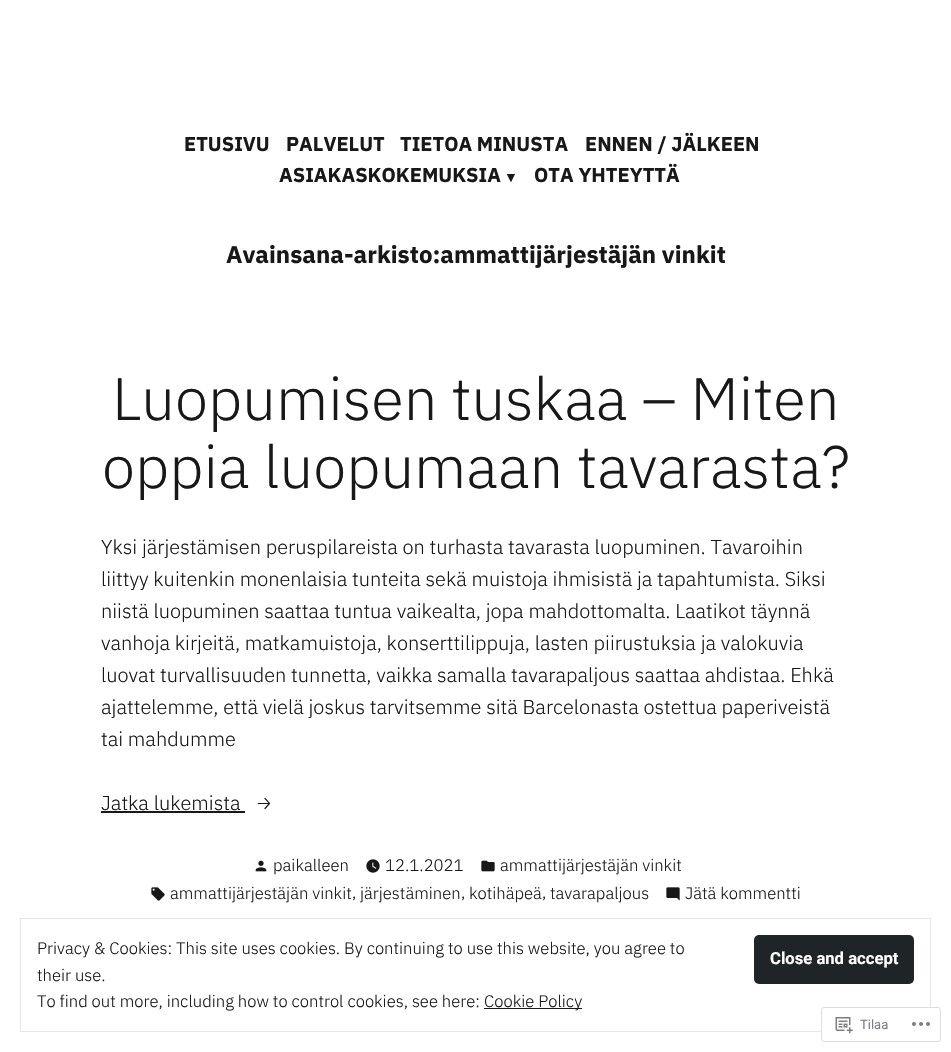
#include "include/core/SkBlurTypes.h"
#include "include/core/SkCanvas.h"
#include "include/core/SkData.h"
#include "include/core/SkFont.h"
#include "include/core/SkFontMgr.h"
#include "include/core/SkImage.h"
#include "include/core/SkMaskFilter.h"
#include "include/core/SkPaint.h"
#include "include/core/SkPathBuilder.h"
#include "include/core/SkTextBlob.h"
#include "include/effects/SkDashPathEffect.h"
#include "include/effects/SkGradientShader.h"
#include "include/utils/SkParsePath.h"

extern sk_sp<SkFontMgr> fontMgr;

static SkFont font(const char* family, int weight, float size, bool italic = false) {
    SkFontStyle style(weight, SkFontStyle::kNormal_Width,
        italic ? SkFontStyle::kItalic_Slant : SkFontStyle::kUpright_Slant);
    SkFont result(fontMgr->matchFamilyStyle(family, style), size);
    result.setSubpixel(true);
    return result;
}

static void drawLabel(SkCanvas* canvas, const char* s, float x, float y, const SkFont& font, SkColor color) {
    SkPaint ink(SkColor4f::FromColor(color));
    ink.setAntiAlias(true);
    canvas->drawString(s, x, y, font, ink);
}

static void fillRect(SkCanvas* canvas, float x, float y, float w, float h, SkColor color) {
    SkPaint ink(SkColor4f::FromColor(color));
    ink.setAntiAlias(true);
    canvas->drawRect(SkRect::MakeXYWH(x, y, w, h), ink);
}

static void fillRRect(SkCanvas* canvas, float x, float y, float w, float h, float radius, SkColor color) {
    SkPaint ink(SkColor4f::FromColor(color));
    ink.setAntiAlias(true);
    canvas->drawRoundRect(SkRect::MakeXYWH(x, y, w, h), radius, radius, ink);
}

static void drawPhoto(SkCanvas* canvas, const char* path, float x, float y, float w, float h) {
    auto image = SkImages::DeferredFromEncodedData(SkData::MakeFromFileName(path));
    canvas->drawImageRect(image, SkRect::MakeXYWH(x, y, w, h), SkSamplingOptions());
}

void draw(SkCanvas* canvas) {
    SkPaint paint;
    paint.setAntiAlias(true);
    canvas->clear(0xFFFFFFFF);
    SkFont font1 = font("IBM Plex Sans", 700, 20);
    drawLabel(canvas, "ETUSIVU", 184, 151, font1, 0xFF181818);
    drawLabel(canvas, "PALVELUT", 286, 151, font1, 0xFF181818);
    drawLabel(canvas, "TIETOA MINUSTA", 400, 151, font1, 0xFF181818);
    drawLabel(canvas, "ENNEN / JÄLKEEN", 585, 151, font1, 0xFF181818);
    drawLabel(canvas, "ASIAKASKOKEMUKSIA", 279, 182, font1, 0xFF181818);
    SkFont font2 = font("Liberation Sans", 700, 14);
    drawLabel(canvas, "▼", 504, 182, font2, 0xFF181818);
    drawLabel(canvas, "OTA YHTEYTTÄ", 534, 182, font1, 0xFF181818);
    SkFont font3 = font("IBM Plex Sans", 700, 24);
    drawLabel(canvas, "Avainsana-arkisto:ammattijärjestäjän vinkit", 226, 263, font3, 0xFF181818);
    SkFont font4 = font("IBM Plex Sans", 300, 59.75f);
    drawLabel(canvas, "Luopumisen tuskaa – Miten", 112, 420, font4, 0xFF181818);
    drawLabel(canvas, "oppia luopumaan tavarasta?", 102, 488, font4, 0xFF181818);
    SkFont font5 = font("IBM Plex Sans", 300, 20);
    drawLabel(canvas, "Yksi järjestämisen peruspilareista on turhasta tavarasta luopuminen. Tavaroihin", 101, 554, font5, 0xFF181818);
    drawLabel(canvas, "liittyy kuitenkin monenlaisia tunteita sekä muistoja ihmisistä ja tapahtumista. Siksi", 101, 586, font5, 0xFF181818);
    drawLabel(canvas, "niistä luopuminen saattaa tuntua vaikealta, jopa mahdottomalta. Laatikot täynnä", 101, 618, font5, 0xFF181818);
    drawLabel(canvas, "vanhoja kirjeitä, matkamuistoja, konserttilippuja, lasten piirustuksia ja valokuvia", 101, 650, font5, 0xFF181818);
    drawLabel(canvas, "luovat turvallisuuden tunnetta, vaikka samalla tavarapaljous saattaa ahdistaa. Ehkä", 101, 682, font5, 0xFF181818);
    drawLabel(canvas, "ajattelemme, että vielä joskus tarvitsemme sitä Barcelonasta ostettua paperiveistä", 101, 714, font5, 0xFF181818);
    drawLabel(canvas, "tai mahdumme", 101, 746, font5, 0xFF181818);
    drawLabel(canvas, "Jatka lukemista", 101, 810, font5, 0xFF181818);
    fillRect(canvas, 101, 811, 144, 2, 0xFF181818);
    SkFont font6 = font("Fira Sans", 300, 20);
    drawLabel(canvas, "→", 255, 810, font6, 0xFF181818);
    drawPhoto(canvas, "assets/img1.png", 255, 860, 12, 12);
    SkFont font7 = font("IBM Plex Sans", 300, 16.65f);
    drawLabel(canvas, "paikalleen", 273, 871, font7, 0xFF181818);
    drawPhoto(canvas, "assets/img2.png", 366, 859, 14, 14);
    drawLabel(canvas, "12.1.2021", 385, 871, font7, 0xFF181818);
    drawPhoto(canvas, "assets/img3.png", 481, 860, 14, 12);
    drawLabel(canvas, "ammattijärjestäjän vinkit", 500, 871, font7, 0xFF181818);
    drawPhoto(canvas, "assets/img4.png", 151, 887, 14, 14);
    drawLabel(canvas, "ammattijärjestäjän vinkit", 170, 899, font7, 0xFF181818);
    drawLabel(canvas, ",", 352, 898, font7, 0xFF181818);
    drawLabel(canvas, "järjestäminen", 360, 899, font7, 0xFF181818);
    drawLabel(canvas, ",", 461, 898, font7, 0xFF181818);
    drawLabel(canvas, "kotihäpeä", 469, 899, font7, 0xFF181818);
    drawLabel(canvas, ",", 542, 898, font7, 0xFF181818);
    drawLabel(canvas, "tavarapaljous", 550, 899, font7, 0xFF181818);
    drawPhoto(canvas, "assets/img5.png", 666, 887, 14, 14);
    drawLabel(canvas, "Jätä kommentti", 685, 899, font7, 0xFF181818);
    paint.setStroke(true);
    paint.setStrokeWidth(1);
    paint.setColor(0xFFE5E5E5);
    canvas->drawRect(SkRect::MakeXYWH(20.5f, 918.5f, 910, 113), paint);
    drawLabel(canvas, "Privacy & Cookies: This site uses cookies. By continuing to use this website, you agree to", 37, 954, font7, 0xFF181818);
    fillRRect(canvas, 754, 935, 160, 49, 5, 0xFF1F2527);
    SkFont font8 = font("Roboto", 700, 16.65f);
    drawLabel(canvas, "Close and accept", 770, 964, font8, 0xFFFFFFFF);
    drawLabel(canvas, "their use.", 37, 981, font7, 0xFF181818);
    drawLabel(canvas, "To find out more, including how to control cookies, see here:", 37, 1007, font7, 0xFF181818);
    fillRect(canvas, 484, 1008, 98, 1, 0xFF181818);
    drawLabel(canvas, "Cookie Policy", 484, 1007, font7, 0xFF181818);
    fillRRect(canvas, 821, 1007, 120, 35, 3, 0xFAFFFFFF);
    paint.setColor(0xFADCDCDE);
    canvas->drawRoundRect(SkRect::MakeXYWH(821.5f, 1007.5f, 119, 34), 2.5f, 2.5f, paint);
    drawPhoto(canvas, "assets/img6.png", 835, 1017, 18, 17);
    SkFont font9 = font("Roboto", 400, 13);
    drawLabel(canvas, "Tilaa", 860, 1029, font9, 0xFF7B7F85);
    drawPhoto(canvas, "assets/img7.png", 912, 1022, 18, 4);
}
